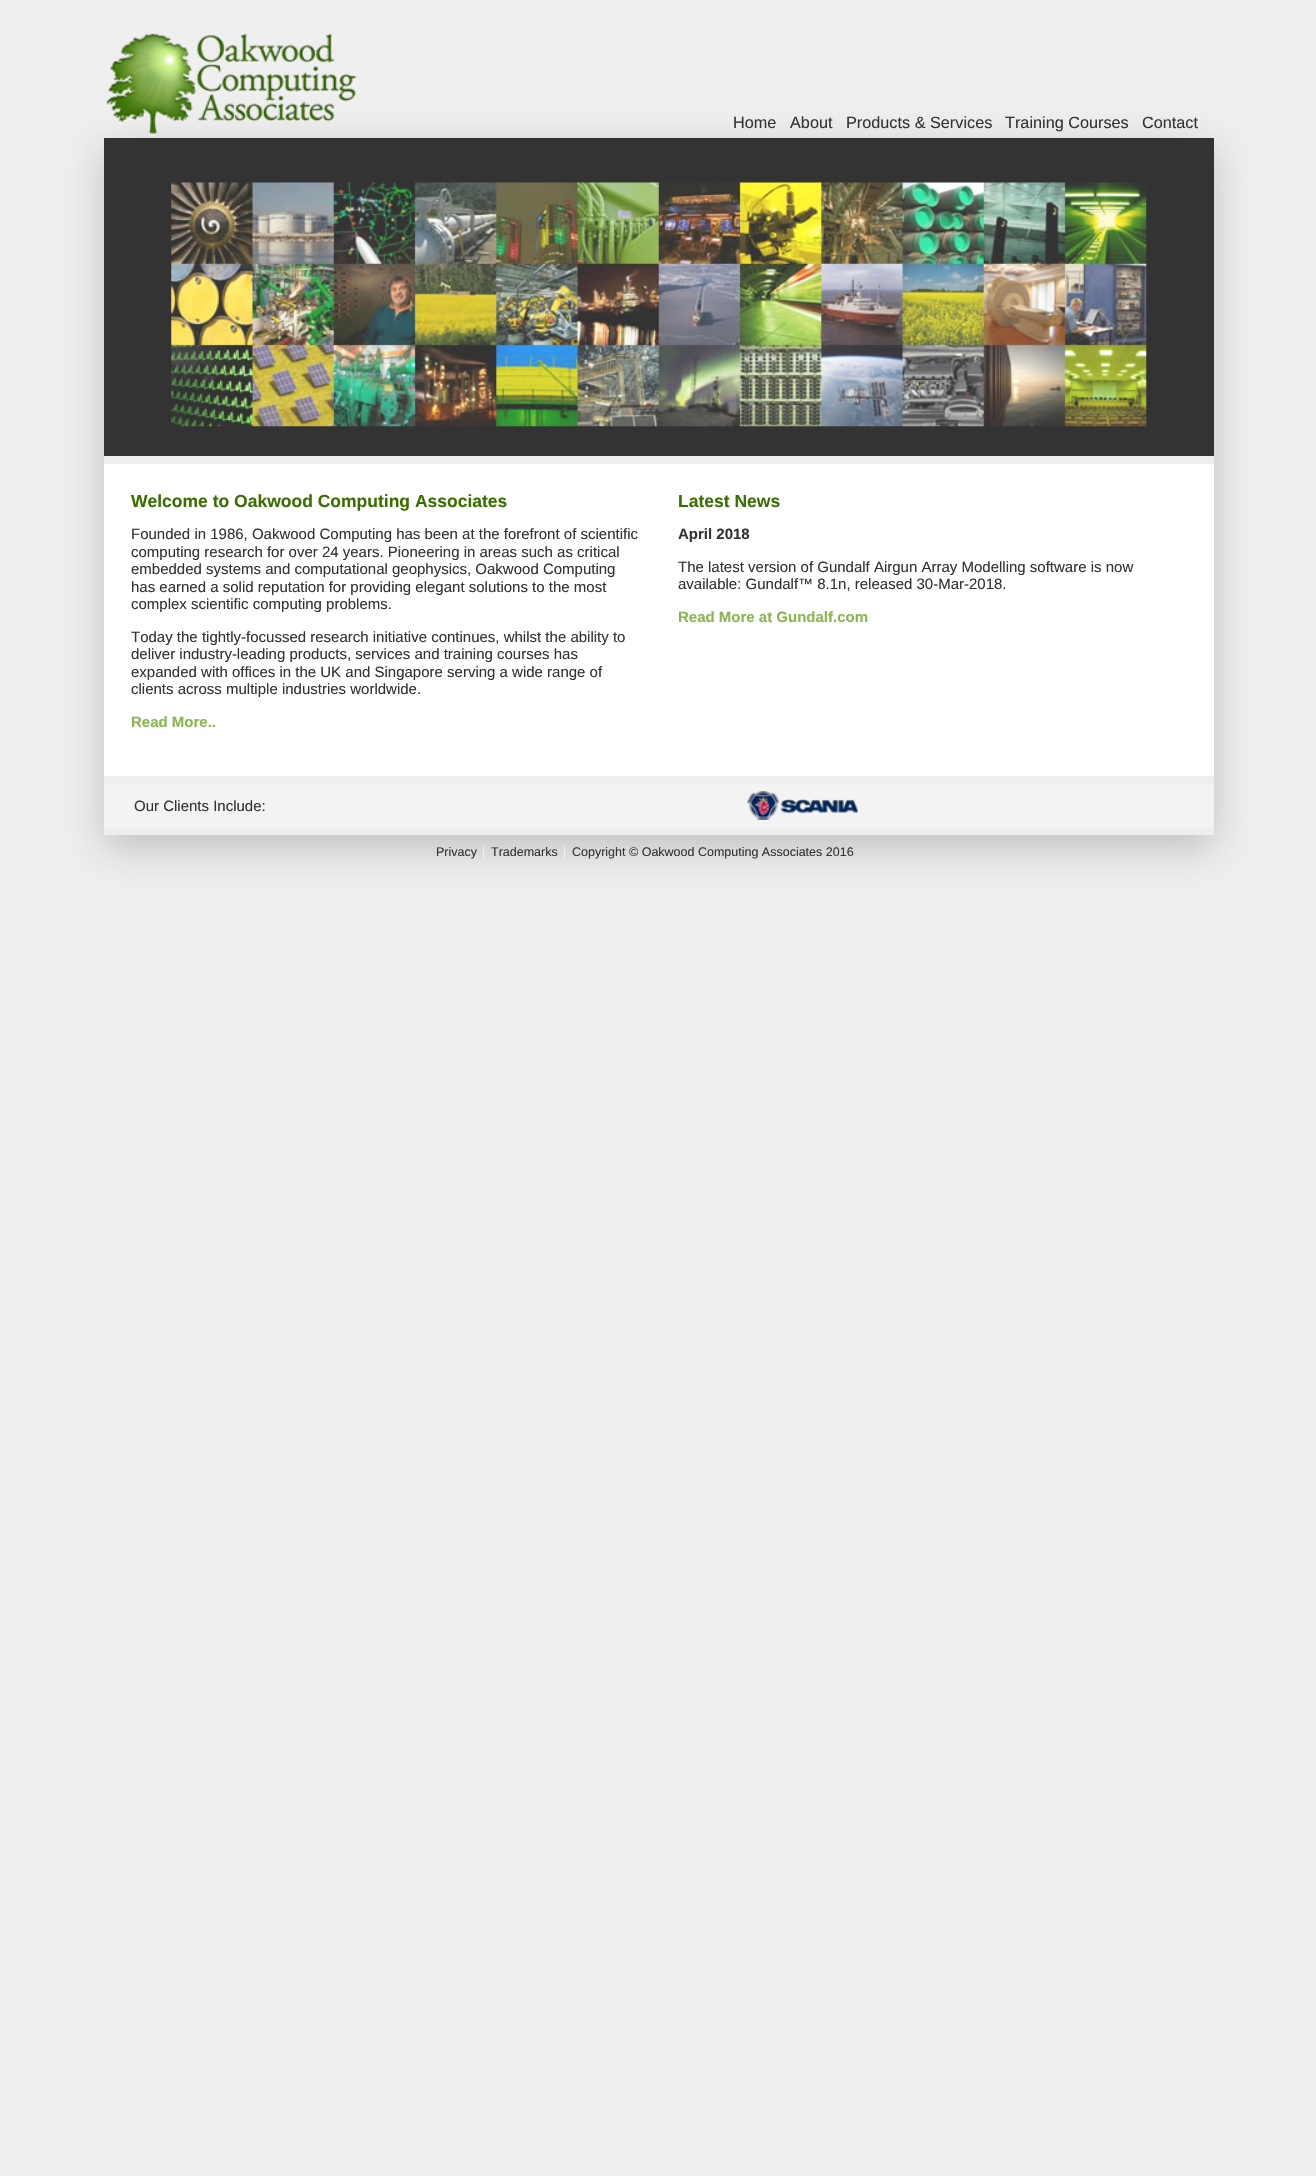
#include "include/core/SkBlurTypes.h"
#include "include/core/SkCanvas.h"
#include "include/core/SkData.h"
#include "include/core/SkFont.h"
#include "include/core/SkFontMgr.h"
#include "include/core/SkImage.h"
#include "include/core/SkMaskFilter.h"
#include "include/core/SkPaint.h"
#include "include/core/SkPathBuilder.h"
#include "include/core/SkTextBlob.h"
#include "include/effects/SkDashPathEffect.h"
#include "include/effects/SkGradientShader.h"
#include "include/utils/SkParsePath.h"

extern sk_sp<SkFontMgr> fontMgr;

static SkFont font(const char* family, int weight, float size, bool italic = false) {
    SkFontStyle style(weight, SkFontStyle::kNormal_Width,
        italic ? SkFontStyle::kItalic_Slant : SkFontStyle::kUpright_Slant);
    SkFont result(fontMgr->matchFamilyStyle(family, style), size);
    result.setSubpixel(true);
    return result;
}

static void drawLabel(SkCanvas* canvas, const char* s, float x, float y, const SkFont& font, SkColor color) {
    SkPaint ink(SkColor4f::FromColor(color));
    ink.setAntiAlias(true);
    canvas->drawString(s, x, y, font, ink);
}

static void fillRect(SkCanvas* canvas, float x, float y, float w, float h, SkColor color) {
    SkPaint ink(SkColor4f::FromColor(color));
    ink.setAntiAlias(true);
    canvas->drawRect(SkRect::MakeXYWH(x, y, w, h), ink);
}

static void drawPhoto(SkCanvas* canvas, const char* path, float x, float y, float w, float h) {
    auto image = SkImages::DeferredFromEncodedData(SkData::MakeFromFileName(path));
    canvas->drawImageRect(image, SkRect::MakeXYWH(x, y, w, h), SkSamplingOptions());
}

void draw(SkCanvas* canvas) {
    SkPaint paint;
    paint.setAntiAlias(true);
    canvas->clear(0xFFEFEFEF);
    paint.setColor(0x33000000);
    paint.setMaskFilter(SkMaskFilter::MakeBlur(kNormal_SkBlurStyle, 19));
    canvas->drawRect(SkRect::MakeXYWH(104, 150, 1110, 698), paint);
    paint.setMaskFilter(nullptr);
    drawPhoto(canvas, "assets/img1.png", 106, 33, 251, 103);
    SkFont font1 = font("Liberation Sans", 400, 16.25f);
    drawLabel(canvas, "Home", 733, 128, font1, 0xFF333333);
    drawLabel(canvas, "About", 790, 128, font1, 0xFF333333);
    drawLabel(canvas, "Products & Services", 846, 128, font1, 0xFF333333);
    drawLabel(canvas, "Training Courses", 1005, 128, font1, 0xFF333333);
    drawLabel(canvas, "Contact", 1142, 128, font1, 0xFF333333);
    fillRect(canvas, 104, 138, 1110, 318, 0xFF333333);
    fillRect(canvas, 104, 456, 1110, 8, 0xFFEEEEEE);
    drawPhoto(canvas, "assets/img2.png", 171, 182, 976, 245);
    fillRect(canvas, 104, 464, 1110, 312, 0xFFFFFFFF);
    SkFont font2 = font("Liberation Sans", 700, 17.5f);
    drawLabel(canvas, "Welcome to Oakwood Computing Associates", 131, 507, font2, 0xFF387000);
    SkFont font3 = font("Liberation Sans", 400, 15);
    drawLabel(canvas, "Founded in 1986, Oakwood Computing has been at the forefront of scientific", 131, 539, font3, 0xFF333333);
    drawLabel(canvas, "computing research for over 24 years. Pioneering in areas such as critical", 131, 557, font3, 0xFF333333);
    drawLabel(canvas, "embedded systems and computational geophysics, Oakwood Computing", 131, 574, font3, 0xFF333333);
    drawLabel(canvas, "has earned a solid reputation for providing elegant solutions to the most", 131, 592, font3, 0xFF333333);
    drawLabel(canvas, "complex scientific computing problems.", 131, 609, font3, 0xFF333333);
    drawLabel(canvas, "Today the tightly-focussed research initiative continues, whilst the ability to", 131, 642, font3, 0xFF333333);
    drawLabel(canvas, "deliver industry-leading products, services and training courses has", 131, 659, font3, 0xFF333333);
    drawLabel(canvas, "expanded with offices in the UK and Singapore serving a wide range of", 131, 677, font3, 0xFF333333);
    drawLabel(canvas, "clients across multiple industries worldwide.", 131, 694, font3, 0xFF333333);
    SkFont font4 = font("Liberation Sans", 700, 15);
    drawLabel(canvas, "Read More..", 131, 727, font4, 0xFF8AB551);
    drawLabel(canvas, "Latest News", 678, 507, font2, 0xFF387000);
    drawLabel(canvas, "April 2018", 678, 539, font4, 0xFF333333);
    drawLabel(canvas, "The latest version of Gundalf Airgun Array Modelling software is now", 678, 572, font3, 0xFF333333);
    drawLabel(canvas, "available: Gundalf™ 8.1n, released 30-Mar-2018.", 678, 589, font3, 0xFF333333);
    drawLabel(canvas, "Read More at Gundalf.com", 678, 622, font4, 0xFF8AB551);
    fillRect(canvas, 104, 776, 1110, 8, 0xFFEEEEEE);
    fillRect(canvas, 104, 784, 1110, 44, 0xFFF3F3F3);
    drawLabel(canvas, "Our Clients Include:", 134, 811, font3, 0xFF333333);
    drawPhoto(canvas, "assets/img3.png", 747, 791, 111, 29);
    fillRect(canvas, 104, 828, 1110, 7, 0xFFEEEEEE);
    SkFont font5 = font("Liberation Sans", 400, 12.5f);
    drawLabel(canvas, "Privacy", 436, 856, font5, 0xFF333333);
    fillRect(canvas, 483, 845, 1, 14, 0xFFEEEEEE);
    drawLabel(canvas, "Trademarks", 491, 856, font5, 0xFF333333);
    fillRect(canvas, 564, 845, 1, 14, 0xFFEEEEEE);
    drawLabel(canvas, "Copyright © Oakwood Computing Associates 2016", 572, 856, font5, 0xFF333333);
}
